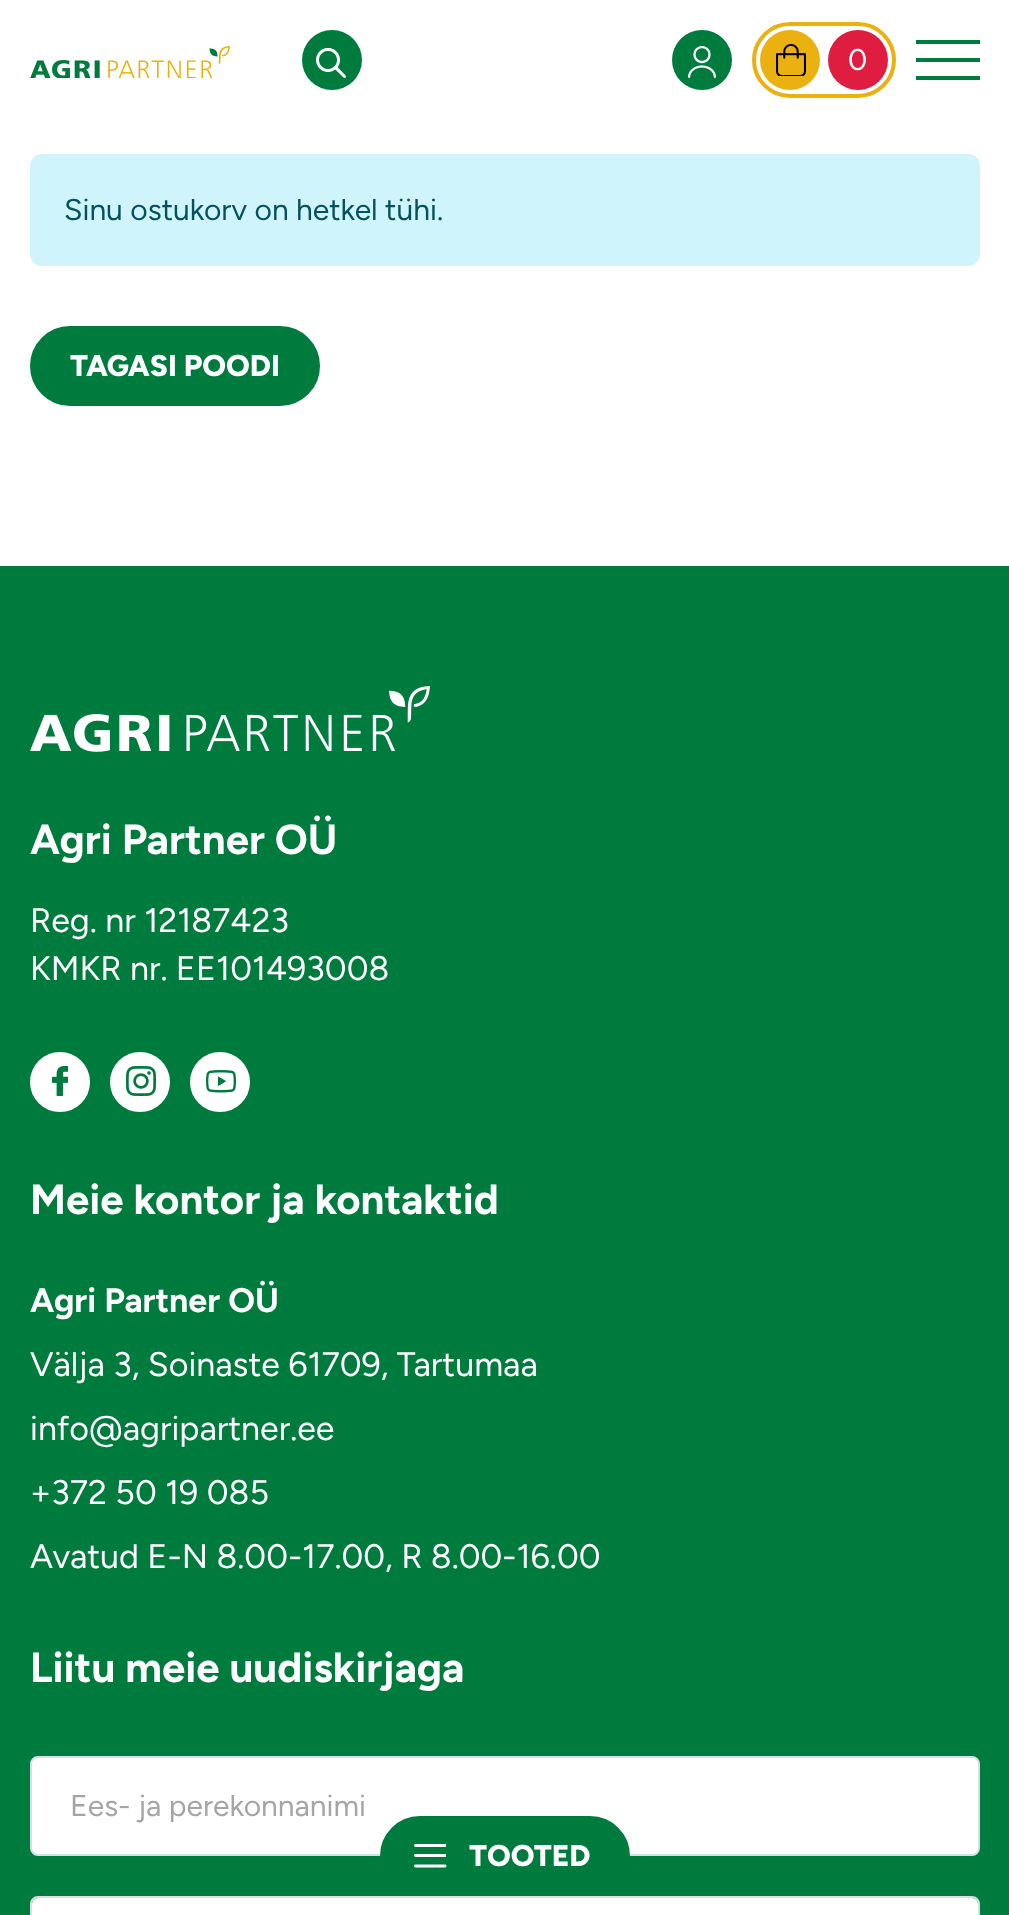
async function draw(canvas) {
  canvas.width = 1009
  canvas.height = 1915
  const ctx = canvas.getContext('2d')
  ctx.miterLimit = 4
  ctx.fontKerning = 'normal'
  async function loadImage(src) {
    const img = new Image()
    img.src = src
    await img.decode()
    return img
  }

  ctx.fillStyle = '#fff'
  ctx.fillRect(0, 0, 1009, 1915)
  ctx.drawImage(await loadImage('image0.png'), 30, 46, 200, 32)
  ctx.fillStyle = '#007b3e'
  ctx.beginPath()
  ctx.arc(332, 60, 30, 0, 2 * Math.PI)
  ctx.fill()
  ctx.drawImage(await loadImage('image1.png'), 316, 48, 30, 30)
  ctx.beginPath()
  ctx.arc(702, 60, 30, 0, 2 * Math.PI)
  ctx.fill()
  ctx.drawImage(await loadImage('image2.png'), 688, 46, 28, 32)
  ctx.beginPath()
  ctx.roundRect(754, 24, 140, 72, 36)
  ctx.strokeStyle = '#ebb110'
  ctx.lineWidth = 4
  ctx.stroke()
  ctx.fillStyle = '#ebb110'
  ctx.beginPath()
  ctx.arc(790, 60, 30, 0, 2 * Math.PI)
  ctx.fill()
  ctx.drawImage(await loadImage('image3.png'), 776, 44, 30, 32)
  ctx.fillStyle = '#df1d40'
  ctx.beginPath()
  ctx.arc(858, 60, 30, 0, 2 * Math.PI)
  ctx.fill()
  ctx.font = '30px Figtree'
  ctx.fillStyle = '#fff'
  ctx.fillText('0', 848, 70)
  ctx.fillStyle = '#007b3e'
  ctx.fillRect(916, 40, 64, 4)
  ctx.fillRect(916, 58, 64, 4)
  ctx.fillRect(916, 76, 64, 4)
  ctx.fillStyle = '#cff4fc'
  ctx.beginPath()
  ctx.roundRect(30, 154, 950, 112, 12)
  ctx.fill()
  ctx.fillStyle = '#055160'
  ctx.fillText('Sinu ostukorv on hetkel tühi.', 64, 220)
  ctx.fillStyle = '#007b3e'
  ctx.beginPath()
  ctx.roundRect(31, 327, 288, 78, 39)
  ctx.fill()
  ctx.strokeStyle = '#007b3e'
  ctx.lineWidth = 2
  ctx.stroke()
  ctx.font = '800 30px Figtree'
  ctx.fillStyle = '#fff'
  ctx.fillText('TAGASI POODI', 70, 376)
  ctx.fillStyle = '#007b3e'
  ctx.fillRect(0, 566, 1009, 1349)
  ctx.drawImage(await loadImage('image4.png'), 30, 686, 400, 66)
  ctx.font = 'bold 42px Figtree'
  ctx.fillStyle = '#fff'
  ctx.fillText('Agri Partner OÜ', 30, 854)
  ctx.font = '34px Figtree'
  ctx.fillText('Reg. nr 12187423', 30, 932)
  ctx.fillText('KMKR nr. EE101493008', 30, 980)
  ctx.beginPath()
  ctx.arc(60, 1082, 29, 0, 2 * Math.PI)
  ctx.fill()
  ctx.strokeStyle = '#fff'
  ctx.stroke()
  ctx.drawImage(await loadImage('image5.png'), 52, 1066, 16, 30)
  ctx.beginPath()
  ctx.arc(140, 1082, 29, 0, 2 * Math.PI)
  ctx.fill()
  ctx.stroke()
  ctx.drawImage(await loadImage('image6.png'), 126, 1066, 30, 30)
  ctx.beginPath()
  ctx.arc(220, 1082, 29, 0, 2 * Math.PI)
  ctx.fill()
  ctx.stroke()
  ctx.drawImage(await loadImage('image7.png'), 206, 1070, 30, 23)
  ctx.font = 'bold 42px Figtree'
  ctx.fillText('Meie kontor ja kontaktid', 30, 1214)
  ctx.font = 'bold 34px Figtree'
  ctx.fillText('Agri Partner OÜ', 30, 1312)
  ctx.font = '34px Figtree'
  ctx.fillText('Välja 3, Soinaste 61709, Tartumaa', 30, 1376)
  ctx.fillText('info@agripartner.ee', 30, 1440)
  ctx.fillText('+372 50 19 085', 30, 1504)
  ctx.fillText('Avatud E-N 8.00-17.00, R 8.00-16.00', 30, 1568)
  ctx.font = 'bold 42px Figtree'
  ctx.fillText('Liitu meie uudiskirjaga', 30, 1682)
  ctx.beginPath()
  ctx.roundRect(31, 1757, 948, 98, 7)
  ctx.fill()
  ctx.strokeStyle = '#d6dfe7'
  ctx.stroke()
  ctx.font = '30px Figtree'
  ctx.fillStyle = '#a5a5a5'
  ctx.fillText('Ees- ja perekonnanimi', 70, 1816)
  ctx.fillStyle = '#fff'
  ctx.beginPath()
  ctx.roundRect(32, 1898, 946, 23, 6)
  ctx.fill()
  ctx.beginPath()
  ctx.roundRect(31, 1897, 948, 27, 7)
  ctx.stroke()
  ctx.fillStyle = '#007b3e'
  ctx.beginPath()
  ctx.roundRect(381, 1817, 248, 78, 39)
  ctx.fill()
  ctx.strokeStyle = '#007b3e'
  ctx.stroke()
  ctx.save()
  ctx.beginPath()
  ctx.rect(414, 1844, 32, 24)
  ctx.clip()
  ctx.beginPath()
  ctx.moveTo(415.5, 1845.5)
  ctx.lineTo(445, 1845.5)
  ctx.moveTo(415.5, 1855.5)
  ctx.lineTo(445, 1855.5)
  ctx.strokeStyle = '#fff'
  ctx.lineWidth = 2.9
  ctx.lineCap = 'round'
  ctx.stroke()
  ctx.restore()
  ctx.beginPath()
  ctx.moveTo(415.5, 1866)
  ctx.lineTo(445, 1866)
  ctx.strokeStyle = '#fff'
  ctx.lineWidth = 2.9
  ctx.lineCap = 'round'
  ctx.stroke()
  ctx.font = '800 30px Figtree'
  ctx.fillStyle = '#fff'
  ctx.fillText('TOOTED', 469, 1866)
}

draw(document.querySelector('canvas'))
